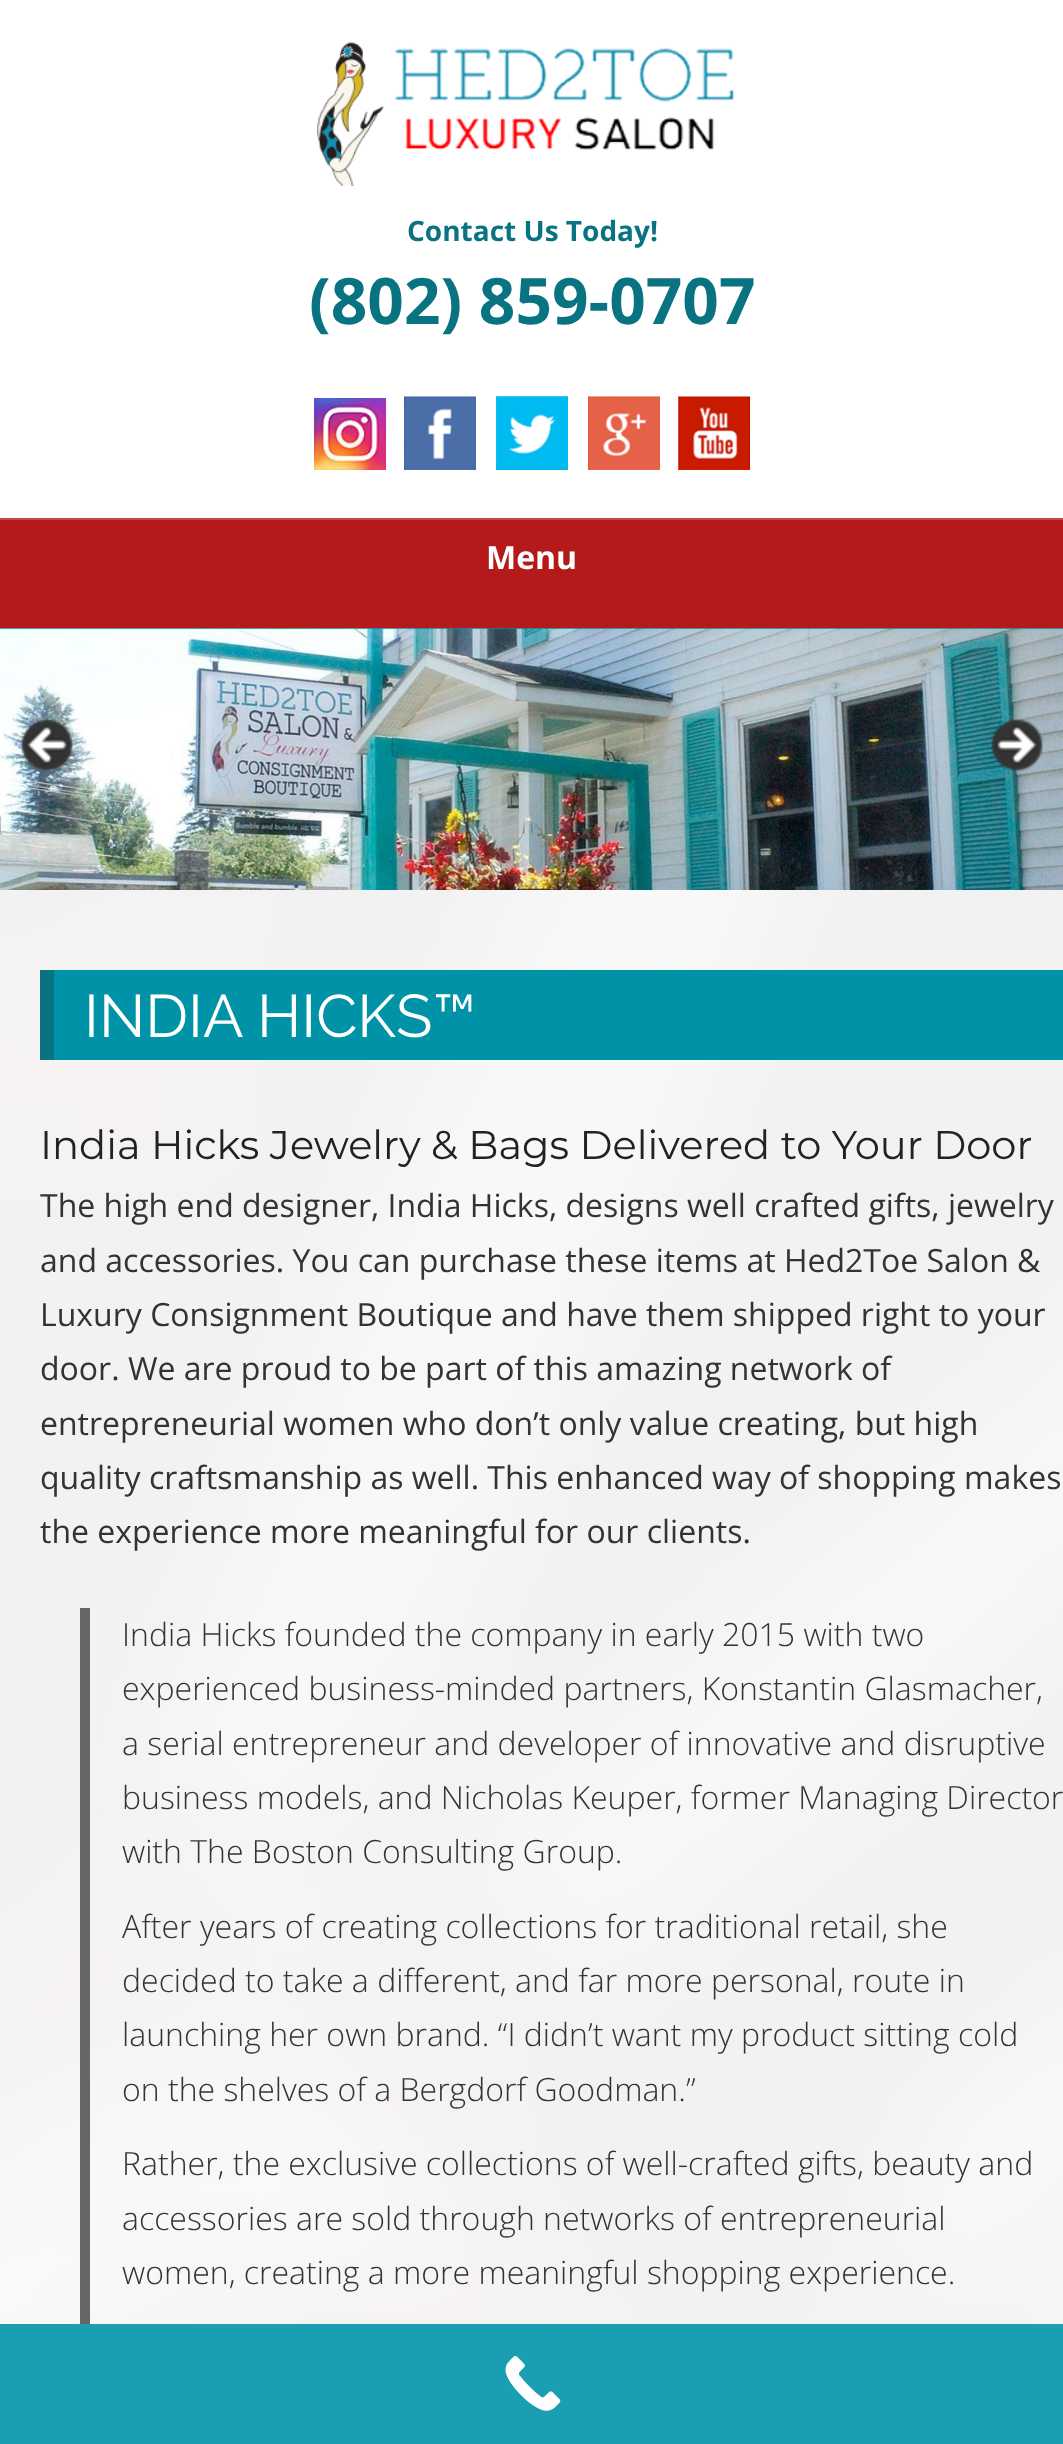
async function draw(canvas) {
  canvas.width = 1063
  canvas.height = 2444
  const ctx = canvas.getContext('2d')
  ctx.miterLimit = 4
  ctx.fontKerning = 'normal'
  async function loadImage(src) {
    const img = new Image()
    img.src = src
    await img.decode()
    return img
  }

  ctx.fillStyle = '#fff'
  ctx.fillRect(0, 0, 1063, 2444)
  ctx.drawImage(await loadImage('image0.png'), 0, 628, 1063, 1696)
  ctx.drawImage(await loadImage('image1.png'), 317, 42, 418, 144)
  ctx.font = 'bold 28px Open Sans'
  ctx.fillStyle = '#097382'
  ctx.fillText('Contact Us Today!', 407, 241)
  ctx.font = 'bold 64px Open Sans'
  ctx.fillText('(802) 859-0707', 309, 324)
  ctx.drawImage(await loadImage('image2.png'), 314, 398, 72, 72)
  ctx.drawImage(await loadImage('image3.png'), 404, 396, 72, 74)
  ctx.drawImage(await loadImage('image4.png'), 496, 396, 72, 74)
  ctx.drawImage(await loadImage('image5.png'), 588, 396, 72, 74)
  ctx.drawImage(await loadImage('image6.png'), 678, 396, 72, 74)
  ctx.fillStyle = '#0000000d'
  ctx.filter = 'blur(2px)'
  ctx.beginPath()
  ctx.rect(0, 520, 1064, 110)
  ctx.fill()
  ctx.filter = 'none'
  ctx.fillStyle = '#b41a1a'
  ctx.fillRect(0, 520, 1063, 108)
  ctx.fillStyle = '#c34848'
  ctx.fillRect(0, 518, 1063, 2)
  ctx.font = 'bold 32px Open Sans'
  ctx.fillStyle = '#fff'
  ctx.fillText('Menu', 486, 569)
  ctx.drawImage(await loadImage('image7.png'), 0, 628, 1063, 262)
  ctx.drawImage(await loadImage('image8.png'), 21, 719, 52, 52)
  ctx.drawImage(await loadImage('image9.png'), 991, 719, 52, 52)
  ctx.fillStyle = '#fffffff2'
  ctx.fillRect(0, 890, 1063, 1434)
  ctx.fillStyle = '#0092a7'
  ctx.fillRect(54, 970, 1009, 90)
  ctx.fillStyle = '#097382'
  ctx.fillRect(40, 970, 14, 90)
  ctx.font = '60px Raleway'
  ctx.fillStyle = '#fff'
  ctx.fillText('INDIA HICKS™', 84, 1037)
  ctx.font = '40px Montserrat'
  ctx.fillStyle = '#222'
  ctx.fillText('India Hicks Jewelry & Bags Delivered to Your Door', 40, 1159)
  ctx.font = '32px Open Sans'
  ctx.fillStyle = '#333'
  ctx.fillText('The high end designer, India Hicks, designs well crafted gifts, jewelry', 40, 1217)
  ctx.fillText('and accessories. You can purchase these items at Hed2Toe Salon &', 40, 1272)
  ctx.fillText('Luxury Consignment Boutique and have them shipped right to your', 40, 1326)
  ctx.fillText('door. We are proud to be part of this amazing network of', 40, 1380)
  ctx.fillText('entrepreneurial women who don’t only value creating, but high', 40, 1435)
  ctx.fillText('quality craftsmanship as well. This enhanced way of shopping makes', 40, 1489)
  ctx.fillText('the experience more meaningful for our clients.', 40, 1543)
  ctx.fillStyle = '#666'
  ctx.fillRect(80, 1608, 10, 716)
  ctx.font = '300 32px Open Sans'
  ctx.fillStyle = '#333'
  ctx.fillText('India Hicks founded the company in early 2015 with two', 122, 1646)
  ctx.fillText('experienced business-minded partners, Konstantin Glasmacher,', 122, 1700)
  ctx.fillText('a serial entrepreneur and developer of innovative and disruptive', 122, 1755)
  ctx.fillText('business models, and Nicholas Keuper, former Managing Director', 122, 1809)
  ctx.fillText('with The Boston Consulting Group.', 122, 1863)
  ctx.fillText('After years of creating collections for traditional retail, she', 122, 1938)
  ctx.fillText('decided to take a different, and far more personal, route in', 122, 1992)
  ctx.fillText('launching her own brand. “I didn’t want my product sitting cold', 122, 2046)
  ctx.fillText('on the shelves of a Bergdorf Goodman.”', 122, 2101)
  ctx.fillText('Rather, the exclusive collections of well-crafted gifts, beauty and', 122, 2175)
  ctx.fillText('accessories are sold through networks of entrepreneurial', 122, 2230)
  ctx.fillText('women, creating a more meaningful shopping experience.', 122, 2284)
  ctx.fillStyle = '#1a9eb2'
  ctx.fillRect(0, 2324, 1063, 120)
  ctx.drawImage(await loadImage('image10.png'), 505, 2356, 56, 55)
}

draw(document.querySelector('canvas'))
